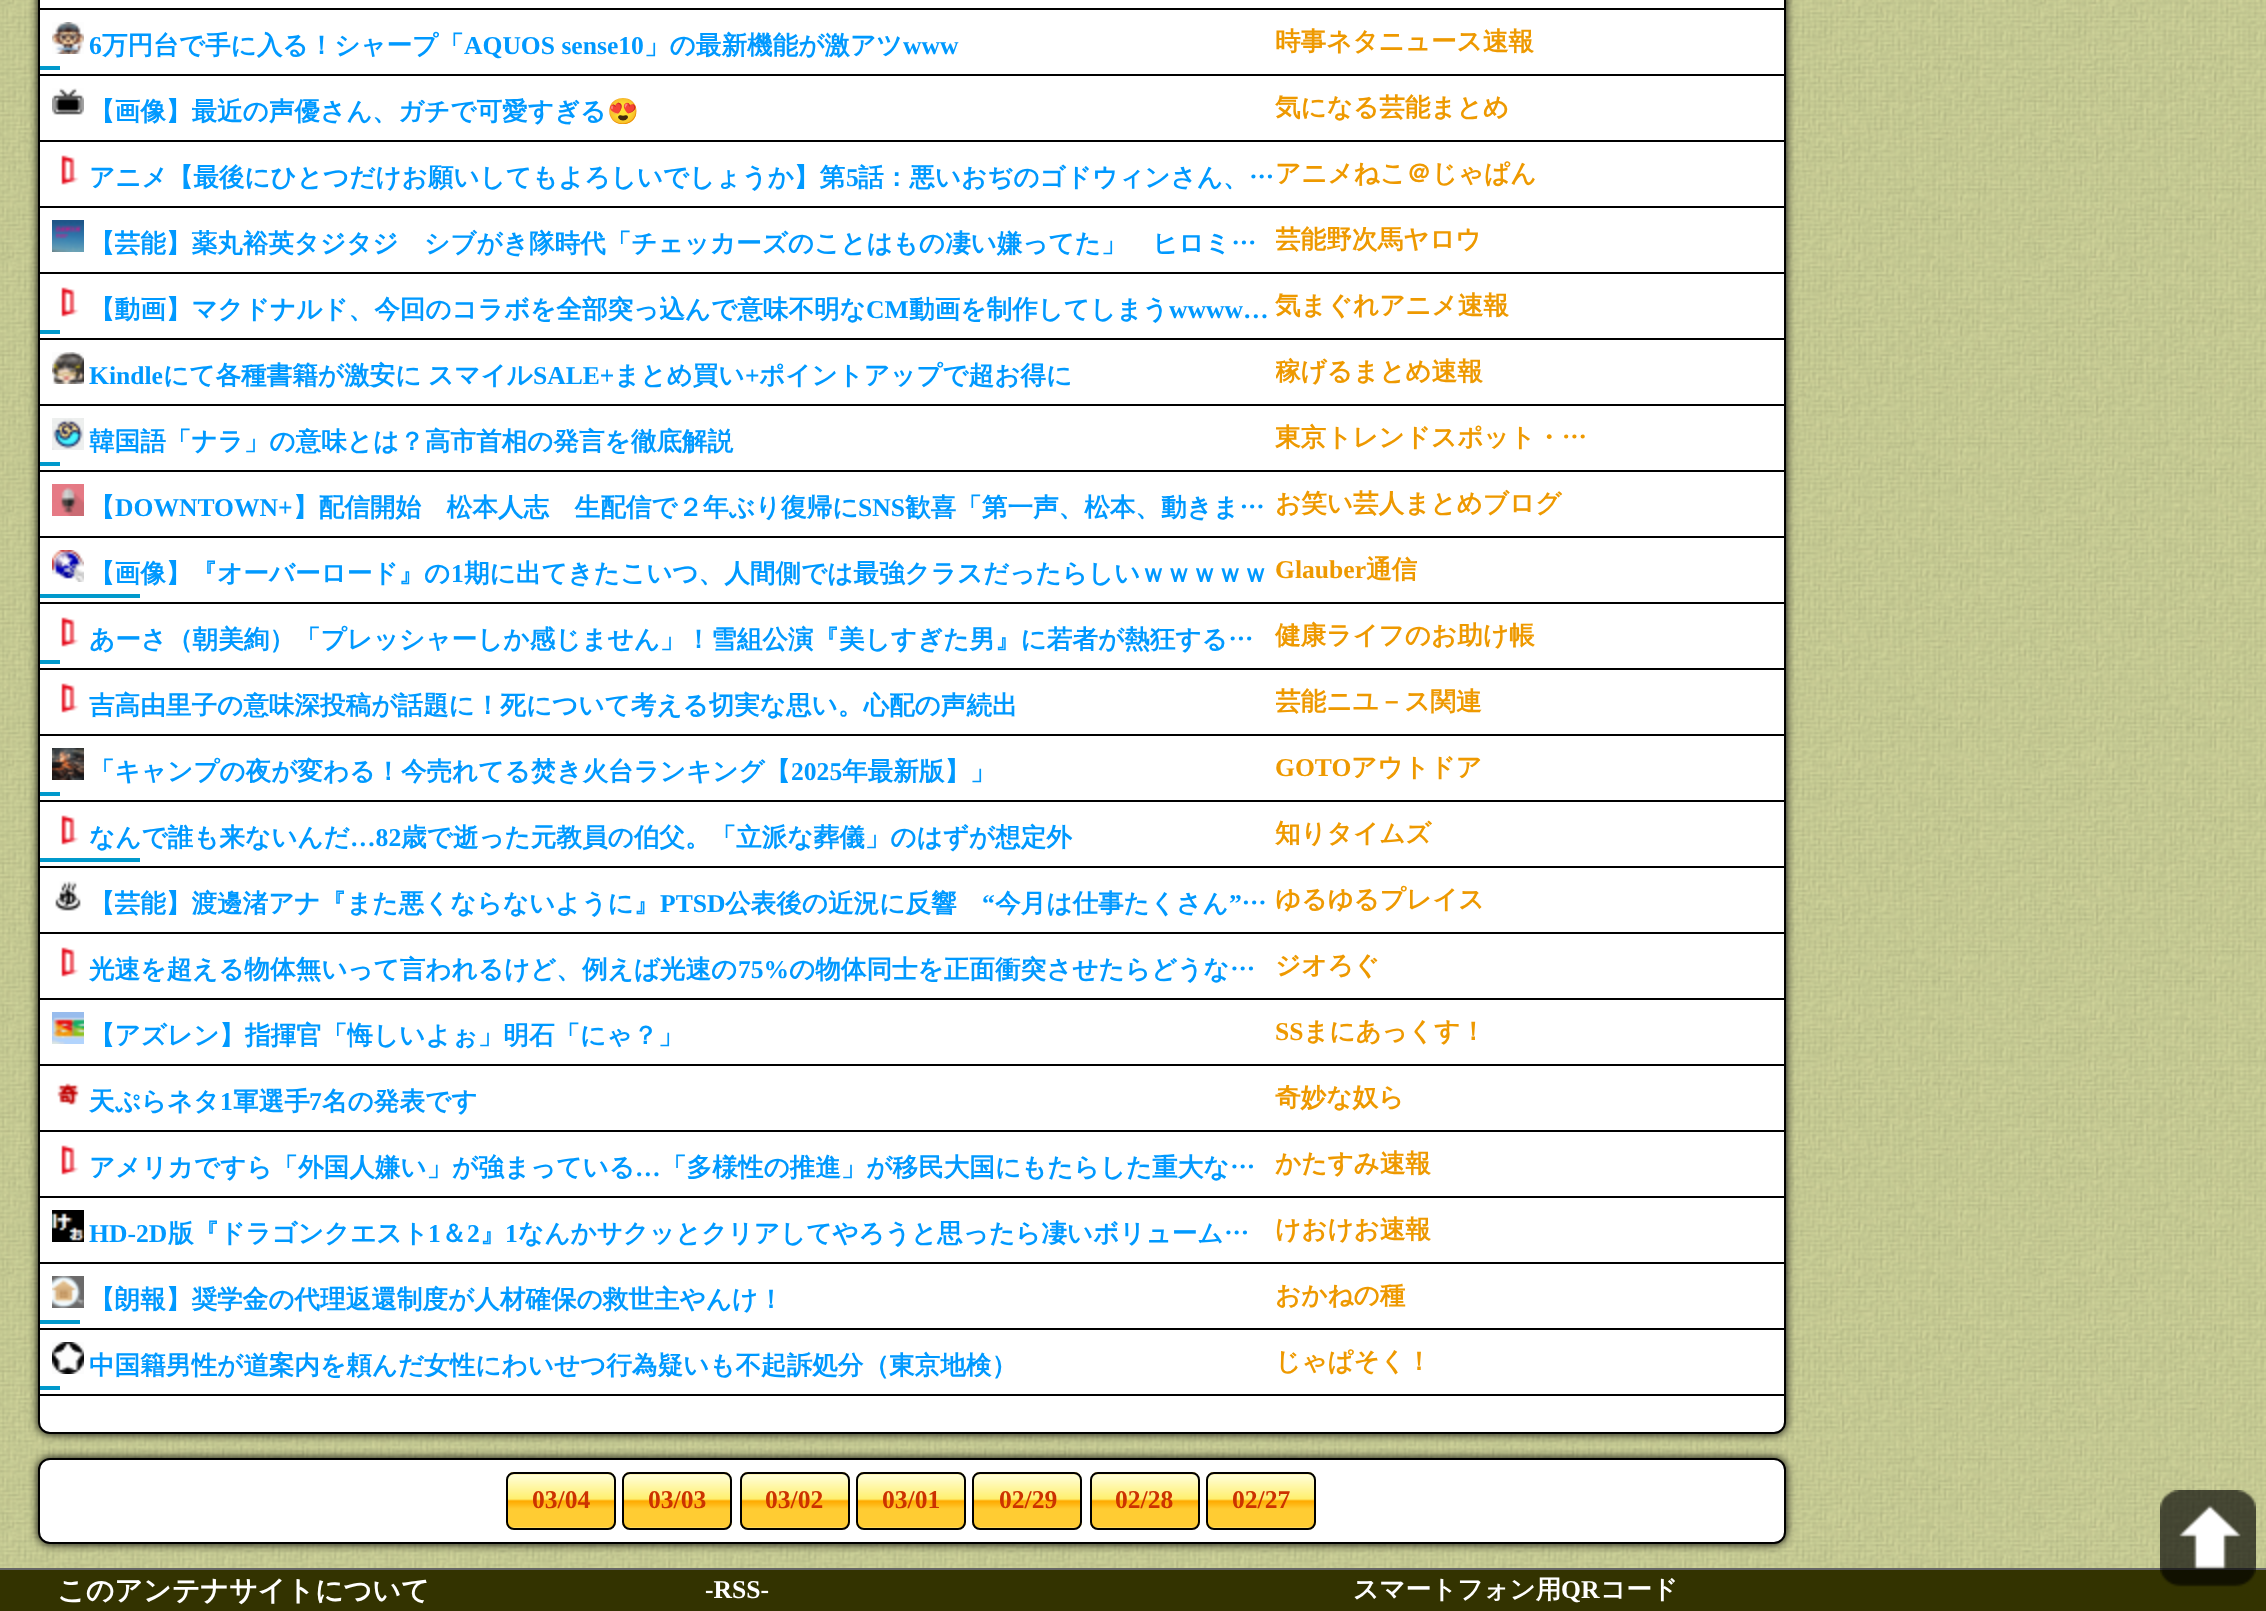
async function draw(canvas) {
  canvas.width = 2266
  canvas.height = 1611
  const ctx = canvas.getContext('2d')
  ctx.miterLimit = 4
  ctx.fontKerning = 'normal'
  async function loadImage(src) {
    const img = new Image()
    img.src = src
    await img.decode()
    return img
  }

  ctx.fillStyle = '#fff'
  ctx.fillRect(0, 0, 2266, 1611)
  ctx.drawImage(await loadImage('image0.png'), 0, 0, 2266, 1568)
  ctx.fillStyle = '#000'
  ctx.filter = 'blur(5px)'
  ctx.beginPath()
  ctx.roundRect(38, -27, 1748, 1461, 12)
  ctx.fill()
  ctx.filter = 'none'
  ctx.fillStyle = '#fff'
  ctx.beginPath()
  ctx.moveTo(39, -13)
  ctx.lineTo(1785, -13)
  ctx.lineTo(1785, 1422)
  ctx.bezierCurveTo(1785, 1428, 1780, 1433, 1774, 1433)
  ctx.lineTo(50, 1433)
  ctx.bezierCurveTo(44, 1433, 39, 1428, 39, 1422)
  ctx.closePath()
  ctx.fill()
  ctx.strokeStyle = '#000'
  ctx.lineWidth = 2
  ctx.stroke()
  ctx.fillStyle = '#000'
  ctx.fillRect(40, 8, 1744, 2)
  ctx.fillRect(40, 74, 1744, 2)
  ctx.drawImage(await loadImage('image1.png'), 52, 22, 32, 32)
  ctx.font = 'bold 25.6px Liberation Serif'
  ctx.fillStyle = '#09f'
  ctx.fillText('6', 89, 54)
  ctx.font = 'bold 25.6px WenQuanYi Zen Hei'
  ctx.fillText('万円台で手に入る！シャープ「', 102, 54)
  ctx.font = 'bold 25.6px Liberation Serif'
  ctx.fillText('AQUOS sense10', 464, 54)
  ctx.font = 'bold 25.6px WenQuanYi Zen Hei'
  ctx.fillText('」の最新機能が激アツ', 644, 54)
  ctx.font = 'bold 25.6px Liberation Serif'
  ctx.fillText('www', 903, 54)
  ctx.font = 'bold 25.6px WenQuanYi Zen Hei'
  ctx.fillStyle = '#e90'
  ctx.fillText('時事ネタニュース速報', 1275, 50)
  ctx.fillStyle = '#09c'
  ctx.fillRect(40, 66, 20, 4)
  ctx.fillStyle = '#000'
  ctx.fillRect(40, 140, 1744, 2)
  ctx.drawImage(await loadImage('image2.png'), 52, 88, 32, 27)
  ctx.fillStyle = '#09f'
  ctx.fillText('【画像】最近の声優さん、ガチで可愛すぎる', 89, 120)
  ctx.font = 'bold 25.6px Noto Color Emoji'
  ctx.fillText('😍', 607, 120)
  ctx.font = 'bold 25.6px WenQuanYi Zen Hei'
  ctx.fillStyle = '#e90'
  ctx.fillText('気になる芸能まとめ', 1275, 116)
  ctx.fillStyle = '#000'
  ctx.fillRect(40, 206, 1744, 2)
  ctx.drawImage(await loadImage('image3.png'), 61, 155, 18, 30)
  ctx.fillStyle = '#09f'
  ctx.fillText('アニメ【最後にひとつだけお願いしてもよろしいでしょうか】第', 89, 186)
  ctx.font = 'bold 25.6px Liberation Serif'
  ctx.fillText('5', 846, 186)
  ctx.font = 'bold 25.6px WenQuanYi Zen Hei'
  ctx.fillText('話：悪いおぢのゴドウィンさん、…', 858, 186)
  ctx.fillStyle = '#e90'
  ctx.fillText('アニメねこ＠じゃぱん', 1275, 182)
  ctx.fillStyle = '#000'
  ctx.fillRect(40, 272, 1744, 2)
  ctx.drawImage(await loadImage('image4.png'), 52, 220, 32, 32)
  ctx.fillStyle = '#09f'
  ctx.fillText('【芸能】薬丸裕英タジタジ　シブがき隊時代「チェッカーズのことはもの凄い嫌ってた」　ヒロミ…', 89, 252)
  ctx.save()
  ctx.beginPath()
  ctx.rect(1276, 208, 328, 56)
  ctx.clip()
  ctx.fillStyle = '#e90'
  ctx.fillText('芸能野次馬ヤロウ', 1275, 248)
  ctx.restore()
  ctx.fillStyle = '#000'
  ctx.fillRect(40, 338, 1744, 2)
  ctx.drawImage(await loadImage('image3.png'), 61, 287, 18, 30)
  ctx.fillStyle = '#09f'
  ctx.fillText('【動画】マクドナルド、今回のコラボを全部突っ込んで意味不明な', 89, 318)
  ctx.font = 'bold 25.6px Liberation Serif'
  ctx.fillText('CM', 866, 318)
  ctx.font = 'bold 25.6px WenQuanYi Zen Hei'
  ctx.fillText('動画を制作してしまう', 909, 318)
  ctx.font = 'bold 25.6px Liberation Serif'
  ctx.fillText('wwww…', 1169, 318)
  ctx.font = 'bold 25.6px WenQuanYi Zen Hei'
  ctx.fillStyle = '#e90'
  ctx.fillText('気まぐれアニメ速報', 1275, 314)
  ctx.fillStyle = '#09c'
  ctx.fillRect(40, 330, 20, 4)
  ctx.fillStyle = '#000'
  ctx.fillRect(40, 404, 1744, 2)
  ctx.drawImage(await loadImage('image5.png'), 52, 352, 32, 32)
  ctx.font = 'bold 25.6px Liberation Serif'
  ctx.fillStyle = '#09f'
  ctx.fillText('Kindle', 89, 384)
  ctx.wordSpacing = '-1px'
  ctx.font = 'bold 25.6px WenQuanYi Zen Hei'
  ctx.fillText('にて各種書籍が激安に スマイル', 163, 384)
  ctx.wordSpacing = '0px'
  ctx.font = 'bold 25.6px Liberation Serif'
  ctx.fillText('SALE+', 533, 384)
  ctx.font = 'bold 25.6px WenQuanYi Zen Hei'
  ctx.fillText('まとめ買い', 614, 384)
  ctx.font = 'bold 25.6px Liberation Serif'
  ctx.fillText('+', 745, 384)
  ctx.font = 'bold 25.6px WenQuanYi Zen Hei'
  ctx.fillText('ポイントアップで超お得に', 759, 384)
  ctx.save()
  ctx.beginPath()
  ctx.rect(1276, 340, 328, 56)
  ctx.clip()
  ctx.fillStyle = '#e90'
  ctx.fillText('稼げるまとめ速報', 1275, 380)
  ctx.restore()
  ctx.fillStyle = '#000'
  ctx.fillRect(40, 470, 1744, 2)
  ctx.drawImage(await loadImage('image6.png'), 52, 418, 32, 32)
  ctx.fillStyle = '#09f'
  ctx.fillText('韓国語「ナラ」の意味とは？高市首相の発言を徹底解説', 89, 450)
  ctx.fillStyle = '#e90'
  ctx.fillText('東京トレンドスポット・…', 1275, 446)
  ctx.fillStyle = '#09c'
  ctx.fillRect(40, 462, 20, 4)
  ctx.fillStyle = '#000'
  ctx.fillRect(40, 536, 1744, 2)
  ctx.drawImage(await loadImage('image7.png'), 52, 484, 32, 32)
  ctx.fillStyle = '#09f'
  ctx.fillText('【', 89, 516)
  ctx.font = 'bold 25.6px Liberation Serif'
  ctx.fillText('DOWNTOWN+', 115, 516)
  ctx.font = 'bold 25.6px WenQuanYi Zen Hei'
  ctx.fillText('】配信開始　松本人志　生配信で２年ぶり復帰に', 293, 516)
  ctx.font = 'bold 25.6px Liberation Serif'
  ctx.fillText('SNS', 858, 516)
  ctx.font = 'bold 25.6px WenQuanYi Zen Hei'
  ctx.fillText('歓喜「第一声、松本、動きま…', 905, 516)
  ctx.fillStyle = '#e90'
  ctx.fillText('お笑い芸人まとめブログ', 1275, 512)
  ctx.fillStyle = '#000'
  ctx.fillRect(40, 602, 1744, 2)
  ctx.drawImage(await loadImage('image8.png'), 52, 550, 32, 32)
  ctx.fillStyle = '#09f'
  ctx.fillText('【画像】『オーバーロード』の', 89, 582)
  ctx.font = 'bold 25.6px Liberation Serif'
  ctx.fillText('1', 451, 582)
  ctx.font = 'bold 25.6px WenQuanYi Zen Hei'
  ctx.fillText('期に出てきたこいつ、人間側では最強クラスだったらしいｗｗｗｗｗ', 464, 582)
  ctx.font = 'bold 25.6px Liberation Serif'
  ctx.fillStyle = '#e90'
  ctx.fillText('Glauber', 1275, 578)
  ctx.font = 'bold 25.6px WenQuanYi Zen Hei'
  ctx.fillText('通信', 1366, 578)
  ctx.fillStyle = '#09c'
  ctx.fillRect(40, 594, 100, 4)
  ctx.fillStyle = '#000'
  ctx.fillRect(40, 668, 1744, 2)
  ctx.drawImage(await loadImage('image3.png'), 61, 617, 18, 30)
  ctx.fillStyle = '#09f'
  ctx.fillText('あーさ（朝美絢）「プレッシャーしか感じません」！雪組公演『美しすぎた男』に若者が熱狂する…', 89, 648)
  ctx.fillStyle = '#e90'
  ctx.fillText('健康ライフのお助け帳', 1275, 644)
  ctx.fillStyle = '#09c'
  ctx.fillRect(40, 660, 20, 4)
  ctx.fillStyle = '#000'
  ctx.fillRect(40, 734, 1744, 2)
  ctx.drawImage(await loadImage('image3.png'), 61, 683, 18, 30)
  ctx.fillStyle = '#09f'
  ctx.fillText('吉高由里子の意味深投稿が話題に！死について考える切実な思い。心配の声続出', 89, 714)
  ctx.save()
  ctx.beginPath()
  ctx.rect(1276, 670, 328, 56)
  ctx.clip()
  ctx.fillStyle = '#e90'
  ctx.fillText('芸能ニユ－ス関連', 1275, 710)
  ctx.restore()
  ctx.fillStyle = '#000'
  ctx.fillRect(40, 800, 1744, 2)
  ctx.drawImage(await loadImage('image9.png'), 52, 748, 32, 32)
  ctx.fillStyle = '#09f'
  ctx.fillText('「キャンプの夜が変わる！今売れてる焚き火台ランキング【', 89, 780)
  ctx.font = 'bold 25.6px Liberation Serif'
  ctx.fillText('2025', 791, 780)
  ctx.font = 'bold 25.6px WenQuanYi Zen Hei'
  ctx.fillText('年最新版】」', 842, 780)
  ctx.font = 'bold 25.6px Liberation Serif'
  ctx.fillStyle = '#e90'
  ctx.fillText('GOTO', 1275, 776)
  ctx.font = 'bold 25.6px WenQuanYi Zen Hei'
  ctx.fillText('アウトドア', 1351, 776)
  ctx.fillStyle = '#09c'
  ctx.fillRect(40, 792, 20, 4)
  ctx.fillStyle = '#000'
  ctx.fillRect(40, 866, 1744, 2)
  ctx.drawImage(await loadImage('image3.png'), 61, 815, 18, 30)
  ctx.fillStyle = '#09f'
  ctx.fillText('なんで誰も来ないんだ', 89, 846)
  ctx.font = 'bold 25.6px Liberation Serif'
  ctx.fillText('…82', 350, 846)
  ctx.font = 'bold 25.6px WenQuanYi Zen Hei'
  ctx.fillText('歳で逝った元教員の伯父。「立派な葬儀」のはずが想定外', 401, 846)
  ctx.fillStyle = '#e90'
  ctx.fillText('知りタイムズ', 1275, 842)
  ctx.fillStyle = '#09c'
  ctx.fillRect(40, 858, 100, 4)
  ctx.fillStyle = '#000'
  ctx.fillRect(40, 932, 1744, 2)
  ctx.drawImage(await loadImage('image10.png'), 55, 881, 26, 30)
  ctx.fillStyle = '#09f'
  ctx.fillText('【芸能】渡邊渚アナ『また悪くならないように』', 89, 912)
  ctx.font = 'bold 25.6px Liberation Serif'
  ctx.fillText('PTSD', 660, 912)
  ctx.font = 'bold 25.6px WenQuanYi Zen Hei'
  ctx.fillText('公表後の近況に反響', 725, 912)
  ctx.font = 'bold 25.6px Liberation Serif'
  ctx.fillText('“', 982, 912)
  ctx.font = 'bold 25.6px WenQuanYi Zen Hei'
  ctx.fillText('今月は仕事たくさん', 995, 912)
  ctx.font = 'bold 25.6px Liberation Serif'
  ctx.fillText('”', 1229, 912)
  ctx.font = 'bold 25.6px WenQuanYi Zen Hei'
  ctx.fillText('…', 1241, 912)
  ctx.fillStyle = '#e90'
  ctx.fillText('ゆるゆるプレイス', 1275, 908)
  ctx.fillStyle = '#000'
  ctx.fillRect(40, 998, 1744, 2)
  ctx.drawImage(await loadImage('image3.png'), 61, 947, 18, 30)
  ctx.fillStyle = '#09f'
  ctx.fillText('光速を超える物体無いって言われるけど、例えば光速の', 89, 978)
  ctx.font = 'bold 25.6px Liberation Serif'
  ctx.fillText('75%', 738, 978)
  ctx.font = 'bold 25.6px WenQuanYi Zen Hei'
  ctx.fillText('の物体同士を正面衝突させたらどうな…', 789, 978)
  ctx.fillStyle = '#e90'
  ctx.fillText('ジオろぐ', 1275, 974)
  ctx.fillStyle = '#000'
  ctx.fillRect(40, 1064, 1744, 2)
  ctx.drawImage(await loadImage('image11.png'), 52, 1012, 32, 32)
  ctx.fillStyle = '#09f'
  ctx.fillText('【アズレン】指揮官「悔しいよぉ」明石「にゃ？」', 89, 1044)
  ctx.font = 'bold 25.6px Liberation Serif'
  ctx.fillStyle = '#e90'
  ctx.fillText('SS', 1275, 1040)
  ctx.font = 'bold 25.6px WenQuanYi Zen Hei'
  ctx.fillText('まにあっくす！', 1303, 1040)
  ctx.fillStyle = '#000'
  ctx.fillRect(40, 1130, 1744, 2)
  ctx.drawImage(await loadImage('image12.png'), 57, 1083, 22, 22)
  ctx.fillStyle = '#09f'
  ctx.fillText('天ぷらネタ', 89, 1110)
  ctx.font = 'bold 25.6px Liberation Serif'
  ctx.fillText('1', 220, 1110)
  ctx.font = 'bold 25.6px WenQuanYi Zen Hei'
  ctx.fillText('軍選手', 233, 1110)
  ctx.font = 'bold 25.6px Liberation Serif'
  ctx.fillText('7', 309, 1110)
  ctx.font = 'bold 25.6px WenQuanYi Zen Hei'
  ctx.fillText('名の発表です', 322, 1110)
  ctx.fillStyle = '#e90'
  ctx.fillText('奇妙な奴ら', 1275, 1106)
  ctx.fillStyle = '#000'
  ctx.fillRect(40, 1196, 1744, 2)
  ctx.drawImage(await loadImage('image3.png'), 61, 1145, 18, 30)
  ctx.fillStyle = '#09f'
  ctx.fillText('アメリカですら「外国人嫌い」が強まっている', 89, 1176)
  ctx.font = 'bold 25.6px Liberation Serif'
  ctx.fillText('…', 635, 1176)
  ctx.font = 'bold 25.6px WenQuanYi Zen Hei'
  ctx.fillText('「多様性の推進」が移民大国にもたらした重大な…', 661, 1176)
  ctx.fillStyle = '#e90'
  ctx.fillText('かたすみ速報', 1275, 1172)
  ctx.fillStyle = '#000'
  ctx.fillRect(40, 1262, 1744, 2)
  ctx.drawImage(await loadImage('image13.png'), 52, 1210, 32, 32)
  ctx.font = 'bold 25.6px Liberation Serif'
  ctx.fillStyle = '#09f'
  ctx.fillText('HD-2D', 89, 1242)
  ctx.font = 'bold 25.6px WenQuanYi Zen Hei'
  ctx.fillText('版『ドラゴンクエスト', 168, 1242)
  ctx.font = 'bold 25.6px Liberation Serif'
  ctx.fillText('1', 428, 1242)
  ctx.font = 'bold 25.6px WenQuanYi Zen Hei'
  ctx.fillText('＆', 441, 1242)
  ctx.font = 'bold 25.6px Liberation Serif'
  ctx.fillText('2', 467, 1242)
  ctx.font = 'bold 25.6px WenQuanYi Zen Hei'
  ctx.fillText('』', 480, 1242)
  ctx.font = 'bold 25.6px Liberation Serif'
  ctx.fillText('1', 505, 1242)
  ctx.font = 'bold 25.6px WenQuanYi Zen Hei'
  ctx.fillText('なんかサクッとクリアしてやろうと思ったら凄いボリューム…', 518, 1242)
  ctx.fillStyle = '#e90'
  ctx.fillText('けおけお速報', 1275, 1238)
  ctx.fillStyle = '#000'
  ctx.fillRect(40, 1328, 1744, 2)
  ctx.drawImage(await loadImage('image14.png'), 52, 1276, 32, 32)
  ctx.fillStyle = '#09f'
  ctx.fillText('【朗報】奨学金の代理返還制度が人材確保の救世主やんけ！', 89, 1308)
  ctx.fillStyle = '#e90'
  ctx.fillText('おかねの種', 1275, 1304)
  ctx.fillStyle = '#09c'
  ctx.fillRect(40, 1320, 40, 4)
  ctx.fillStyle = '#000'
  ctx.fillRect(40, 1394, 1744, 2)
  ctx.drawImage(await loadImage('image15.png'), 52, 1342, 32, 32)
  ctx.fillStyle = '#09f'
  ctx.fillText('中国籍男性が道案内を頼んだ女性にわいせつ行為疑いも不起訴処分（東京地検）', 89, 1374)
  ctx.fillStyle = '#e90'
  ctx.fillText('じゃぱそく！', 1275, 1370)
  ctx.fillStyle = '#09c'
  ctx.fillRect(40, 1386, 20, 4)
  ctx.fillStyle = '#000'
  ctx.filter = 'blur(5px)'
  ctx.beginPath()
  ctx.roundRect(38, 1458, 1748, 86, 12)
  ctx.fill()
  ctx.filter = 'none'
  ctx.fillStyle = '#fff'
  ctx.beginPath()
  ctx.roundRect(39, 1459, 1746, 84, 11)
  ctx.fill()
  ctx.stroke()
  ctx.drawImage(await loadImage('image16.png'), 506, 1472, 110, 58)
  ctx.beginPath()
  ctx.roundRect(507, 1473, 108, 56, 7)
  ctx.stroke()
  ctx.font = 'bold 25.6px Liberation Serif'
  ctx.fillStyle = '#c30'
  ctx.fillText('03/04', 532, 1508)
  ctx.drawImage(await loadImage('image17.png'), 622, 1472, 110, 58)
  ctx.beginPath()
  ctx.roundRect(623, 1473, 108, 56, 7)
  ctx.stroke()
  ctx.fillText('03/03', 648, 1508)
  ctx.drawImage(await loadImage('image17.png'), 740, 1472, 110, 58)
  ctx.beginPath()
  ctx.roundRect(741, 1473, 108, 56, 7)
  ctx.stroke()
  ctx.fillText('03/02', 765, 1508)
  ctx.drawImage(await loadImage('image17.png'), 856, 1472, 110, 58)
  ctx.beginPath()
  ctx.roundRect(857, 1473, 108, 56, 7)
  ctx.stroke()
  ctx.fillText('03/01', 882, 1508)
  ctx.drawImage(await loadImage('image17.png'), 972, 1472, 110, 58)
  ctx.beginPath()
  ctx.roundRect(973, 1473, 108, 56, 7)
  ctx.stroke()
  ctx.fillText('02/29', 999, 1508)
  ctx.drawImage(await loadImage('image17.png'), 1090, 1472, 110, 58)
  ctx.beginPath()
  ctx.roundRect(1091, 1473, 108, 56, 7)
  ctx.stroke()
  ctx.fillText('02/28', 1115, 1508)
  ctx.drawImage(await loadImage('image17.png'), 1206, 1472, 110, 58)
  ctx.beginPath()
  ctx.roundRect(1207, 1473, 108, 56, 7)
  ctx.stroke()
  ctx.fillText('02/27', 1232, 1508)
  ctx.fillStyle = '#330'
  ctx.fillRect(0, 1570, 2266, 41)
  ctx.fillStyle = '#666'
  ctx.fillRect(0, 1568, 2266, 2)
  ctx.drawImage(await loadImage('image18.png'), 2160, 1490, 96, 97)
  ctx.font = 'bold 28px WenQuanYi Zen Hei'
  ctx.fillStyle = '#fff'
  ctx.fillText('このアンテナサイトについて', 57, 1600)
  ctx.font = 'bold 25.6px Liberation Serif'
  ctx.fillText('-RSS-', 705, 1598)
  ctx.font = 'bold 25.6px WenQuanYi Zen Hei'
  ctx.fillText('スマートフォン用', 1353, 1598)
  ctx.font = 'bold 25.6px Liberation Serif'
  ctx.fillText('QR', 1561, 1598)
  ctx.font = 'bold 25.6px WenQuanYi Zen Hei'
  ctx.fillText('コード', 1600, 1598)
}

draw(document.querySelector('canvas'))
